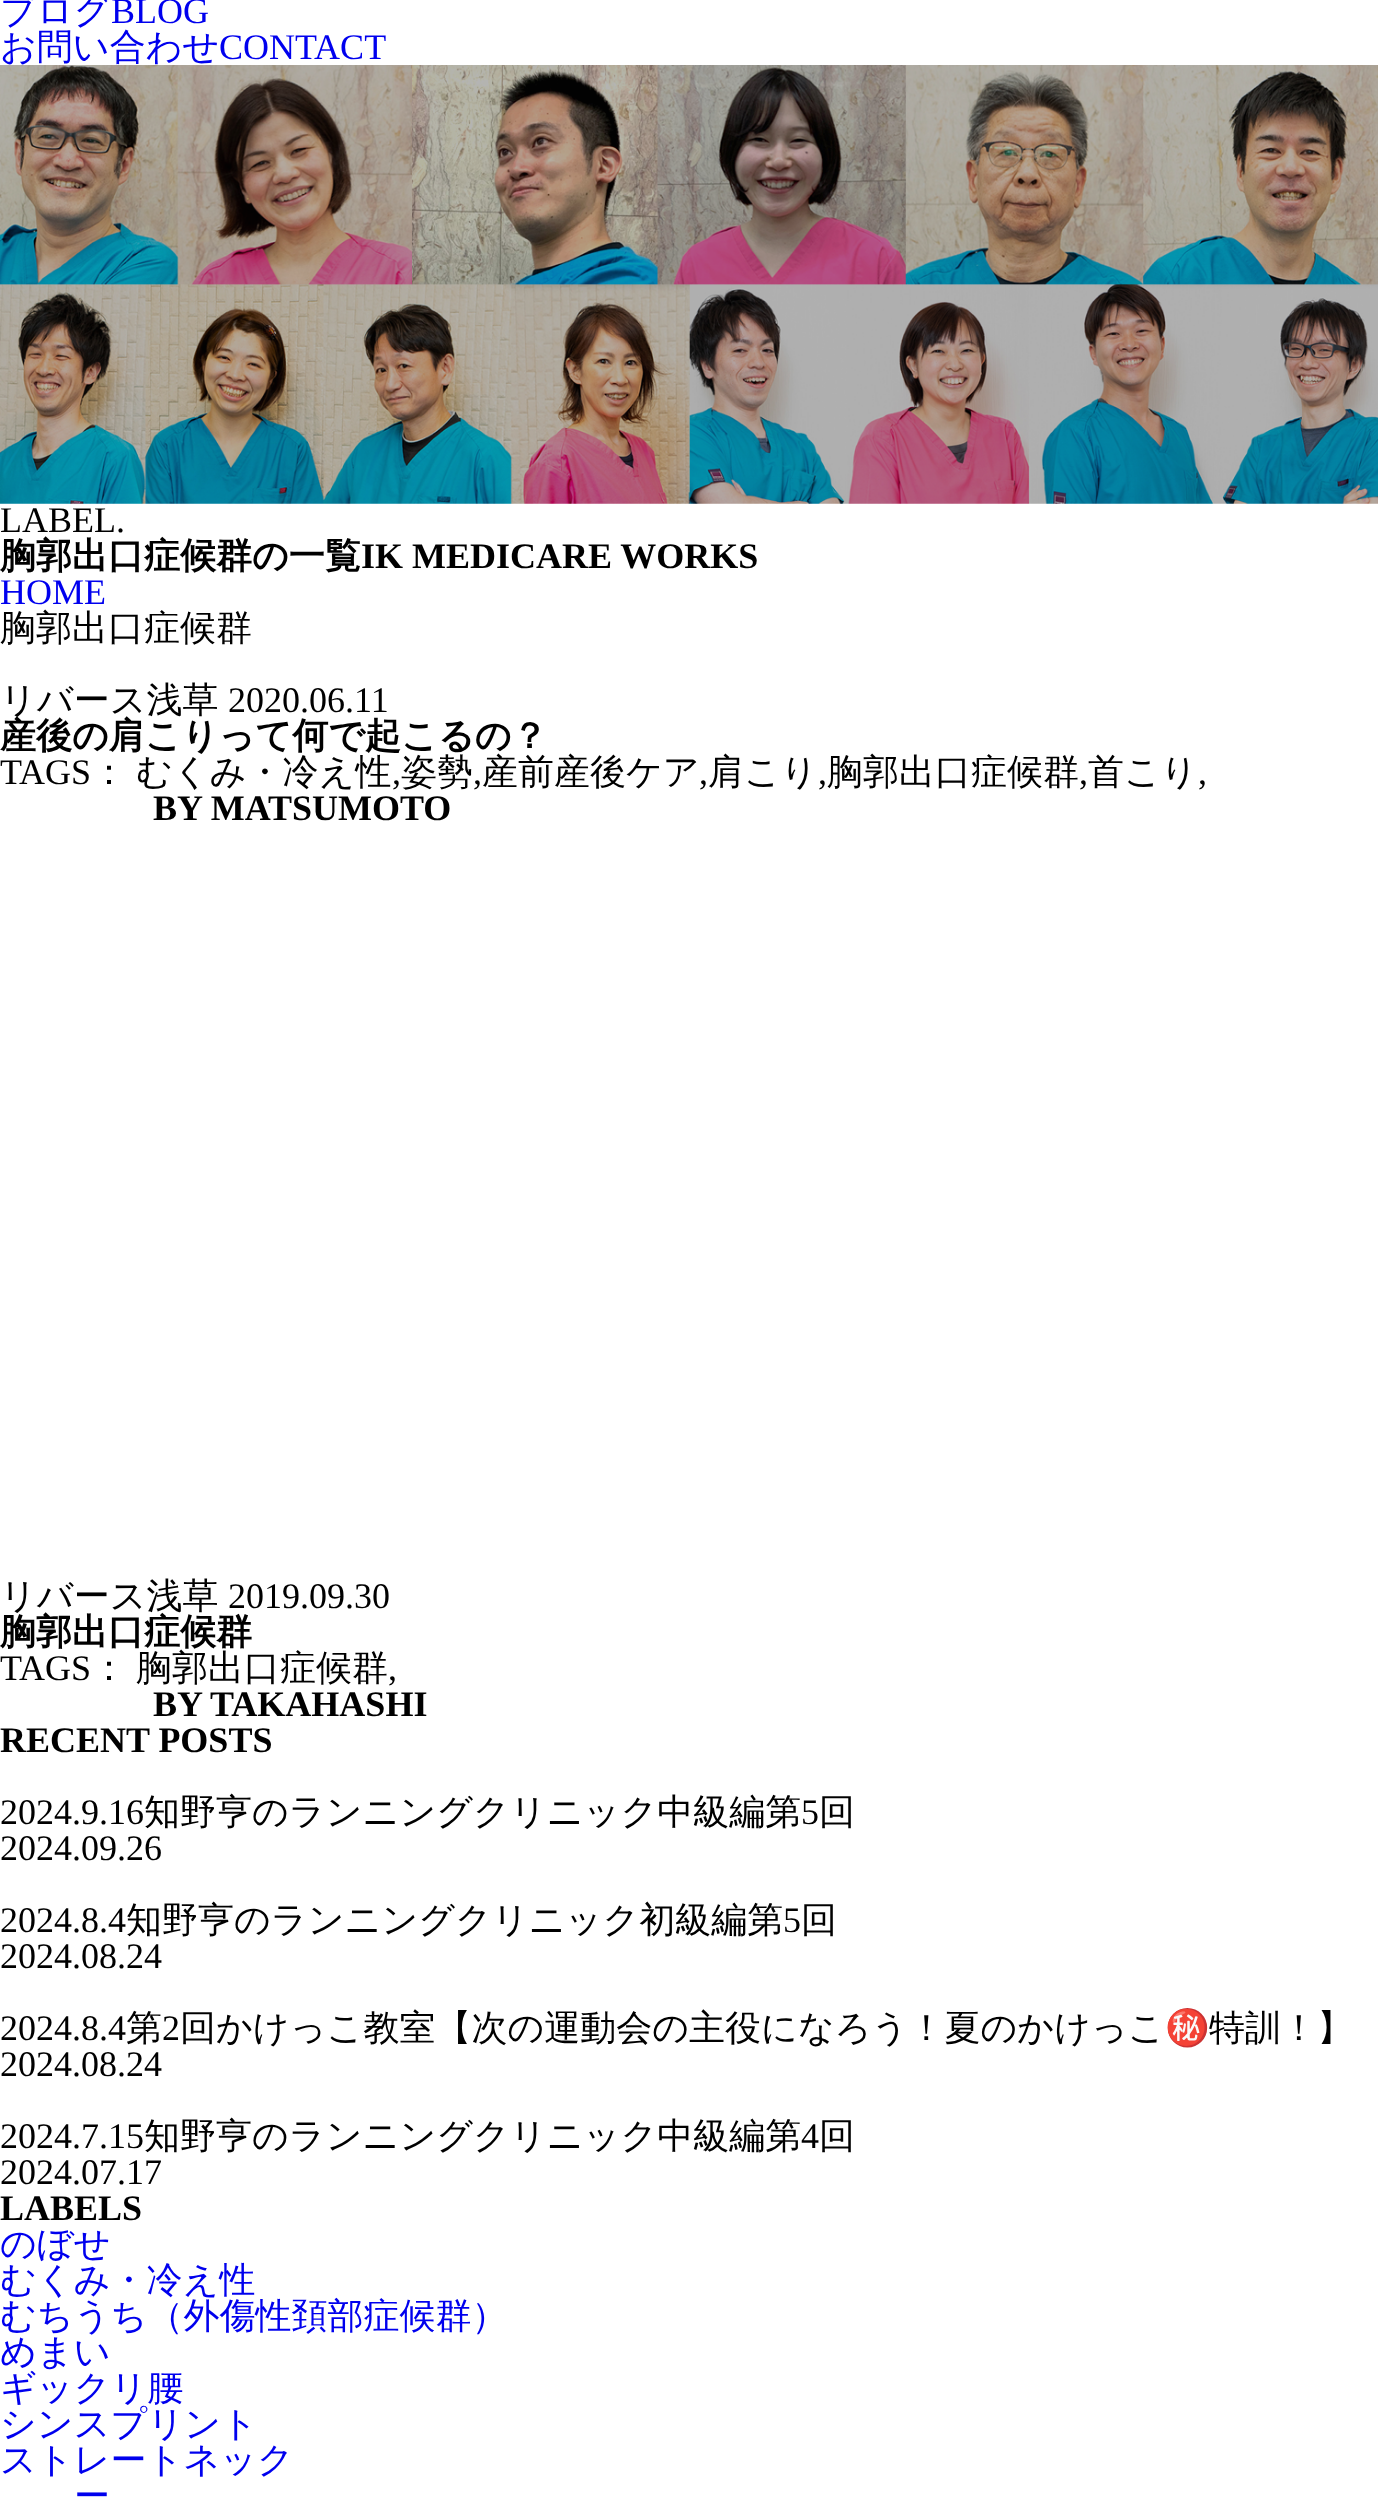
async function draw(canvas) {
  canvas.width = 1378
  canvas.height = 2497
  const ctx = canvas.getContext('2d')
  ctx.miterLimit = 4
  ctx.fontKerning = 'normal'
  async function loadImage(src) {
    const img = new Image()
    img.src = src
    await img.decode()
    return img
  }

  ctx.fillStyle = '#fff'
  ctx.fillRect(0, 0, 1378, 2497)
  ctx.font = '500 36px WenQuanYi Zen Hei'
  ctx.fillStyle = '#00e'
  ctx.fillText('ブログ', 0, 23)
  ctx.font = '36px Liberation Serif'
  ctx.fillText('BLOG', 111, 23)
  ctx.font = '500 36px WenQuanYi Zen Hei'
  ctx.fillText('お問い合わせ', 0, 59)
  ctx.font = '36px Liberation Serif'
  ctx.fillText('CONTACT', 219, 59)
  ctx.drawImage(await loadImage('image0.png'), 0, 65, 1378, 439)
  ctx.fillStyle = '#000'
  ctx.fillText('LABEL.', 0, 532)
  ctx.font = 'bold 36px WenQuanYi Zen Hei'
  ctx.fillText('胸郭出口症候群の一覧', 0, 568)
  ctx.font = 'bold 36px Liberation Serif'
  ctx.fillText('IK MEDICARE WORKS', 361, 568)
  ctx.font = '36px Liberation Serif'
  ctx.fillStyle = '#00e'
  ctx.fillText('HOME', 0, 604)
  ctx.font = '500 36px WenQuanYi Zen Hei'
  ctx.fillStyle = '#000'
  ctx.fillText('胸郭出口症候群', 0, 640)
  ctx.fillText('リバース浅草', 0, 712)
  ctx.font = '36px Liberation Serif'
  ctx.fillText('2020.06.11', 228, 712)
  ctx.font = 'bold 36px WenQuanYi Zen Hei'
  ctx.fillText('産後の肩こりって何で起こるの？', 0, 748)
  ctx.font = '36px Liberation Serif'
  ctx.fillText('TAGS', 0, 784)
  ctx.font = '500 36px WenQuanYi Zen Hei'
  ctx.fillText('：', 91, 784)
  ctx.fillText('むくみ・冷え性', 136, 784)
  ctx.fillText('姿勢', 401, 784)
  ctx.fillText('産前産後ケア', 482, 784)
  ctx.fillText('肩こり', 708, 784)
  ctx.fillText('胸郭出口症候群', 827, 784)
  ctx.fillText('首こり', 1088, 784)
  ctx.font = '36px Liberation Serif'
  ctx.fillText(',', 392, 784)
  ctx.fillText(',', 473, 784)
  ctx.fillText(',', 699, 784)
  ctx.fillText(',', 818, 784)
  ctx.fillText(',', 1079, 784)
  ctx.fillText(',', 1198, 784)
  ctx.font = 'bold 36px Liberation Serif'
  ctx.fillText('BY MATSUMOTO', 153, 820)
  ctx.font = '500 36px WenQuanYi Zen Hei'
  ctx.fillText('リバース浅草', 0, 1608)
  ctx.font = '36px Liberation Serif'
  ctx.fillText('2019.09.30', 228, 1608)
  ctx.font = 'bold 36px WenQuanYi Zen Hei'
  ctx.fillText('胸郭出口症候群', 0, 1644)
  ctx.font = '36px Liberation Serif'
  ctx.fillText('TAGS', 0, 1680)
  ctx.font = '500 36px WenQuanYi Zen Hei'
  ctx.fillText('：', 91, 1680)
  ctx.fillText('胸郭出口症候群', 136, 1680)
  ctx.font = '36px Liberation Serif'
  ctx.fillText(',', 388, 1680)
  ctx.font = 'bold 36px Liberation Serif'
  ctx.fillText('BY TAKAHASHI', 153, 1716)
  ctx.fillText('RECENT POSTS', 0, 1752)
  ctx.font = '36px Liberation Serif'
  ctx.fillText('2024.9.16', 0, 1824)
  ctx.font = '500 36px WenQuanYi Zen Hei'
  ctx.fillText('知野亨のランニングクリニック中級編第', 144, 1824)
  ctx.font = '36px Liberation Serif'
  ctx.fillText('5', 801, 1824)
  ctx.font = '500 36px WenQuanYi Zen Hei'
  ctx.fillText('回', 819, 1824)
  ctx.font = '36px Liberation Serif'
  ctx.fillText('2024.09.26', 0, 1860)
  ctx.fillText('2024.8.4', 0, 1932)
  ctx.font = '500 36px WenQuanYi Zen Hei'
  ctx.fillText('知野亨のランニングクリニック初級編第', 126, 1932)
  ctx.font = '36px Liberation Serif'
  ctx.fillText('5', 783, 1932)
  ctx.font = '500 36px WenQuanYi Zen Hei'
  ctx.fillText('回', 801, 1932)
  ctx.font = '36px Liberation Serif'
  ctx.fillText('2024.08.24', 0, 1968)
  ctx.fillText('2024.8.4', 0, 2040)
  ctx.font = '500 36px WenQuanYi Zen Hei'
  ctx.fillText('第', 126, 2040)
  ctx.font = '36px Liberation Serif'
  ctx.fillText('2', 162, 2040)
  ctx.font = '500 36px WenQuanYi Zen Hei'
  ctx.fillText('回かけっこ教室【次の運動会の主役になろう！夏のかけっこ', 180, 2040)
  ctx.font = '36px Noto Color Emoji'
  ctx.fillText('㊙️', 1165, 2040)
  ctx.font = '500 36px WenQuanYi Zen Hei'
  ctx.fillText('特訓！】', 1209, 2040)
  ctx.font = '36px Liberation Serif'
  ctx.fillText('2024.08.24', 0, 2076)
  ctx.fillText('2024.7.15', 0, 2148)
  ctx.font = '500 36px WenQuanYi Zen Hei'
  ctx.fillText('知野亨のランニングクリニック中級編第', 144, 2148)
  ctx.font = '36px Liberation Serif'
  ctx.fillText('4', 801, 2148)
  ctx.font = '500 36px WenQuanYi Zen Hei'
  ctx.fillText('回', 819, 2148)
  ctx.font = '36px Liberation Serif'
  ctx.fillText('2024.07.17', 0, 2184)
  ctx.font = 'bold 36px Liberation Serif'
  ctx.fillText('LABELS', 0, 2220)
  ctx.font = '500 36px WenQuanYi Zen Hei'
  ctx.fillStyle = '#00e'
  ctx.fillText('のぼせ', 0, 2256)
  ctx.fillText('むくみ・冷え性', 0, 2292)
  ctx.fillText('むちうち（外傷性頚部症候群）', 0, 2328)
  ctx.fillText('めまい', 0, 2364)
  ctx.fillText('ギックリ腰', 0, 2400)
  ctx.fillText('シンスプリント', 0, 2436)
  ctx.fillText('ストレートネック', 0, 2472)
  ctx.fillText('ー', 74, 2508)
}

draw(document.querySelector('canvas'))
